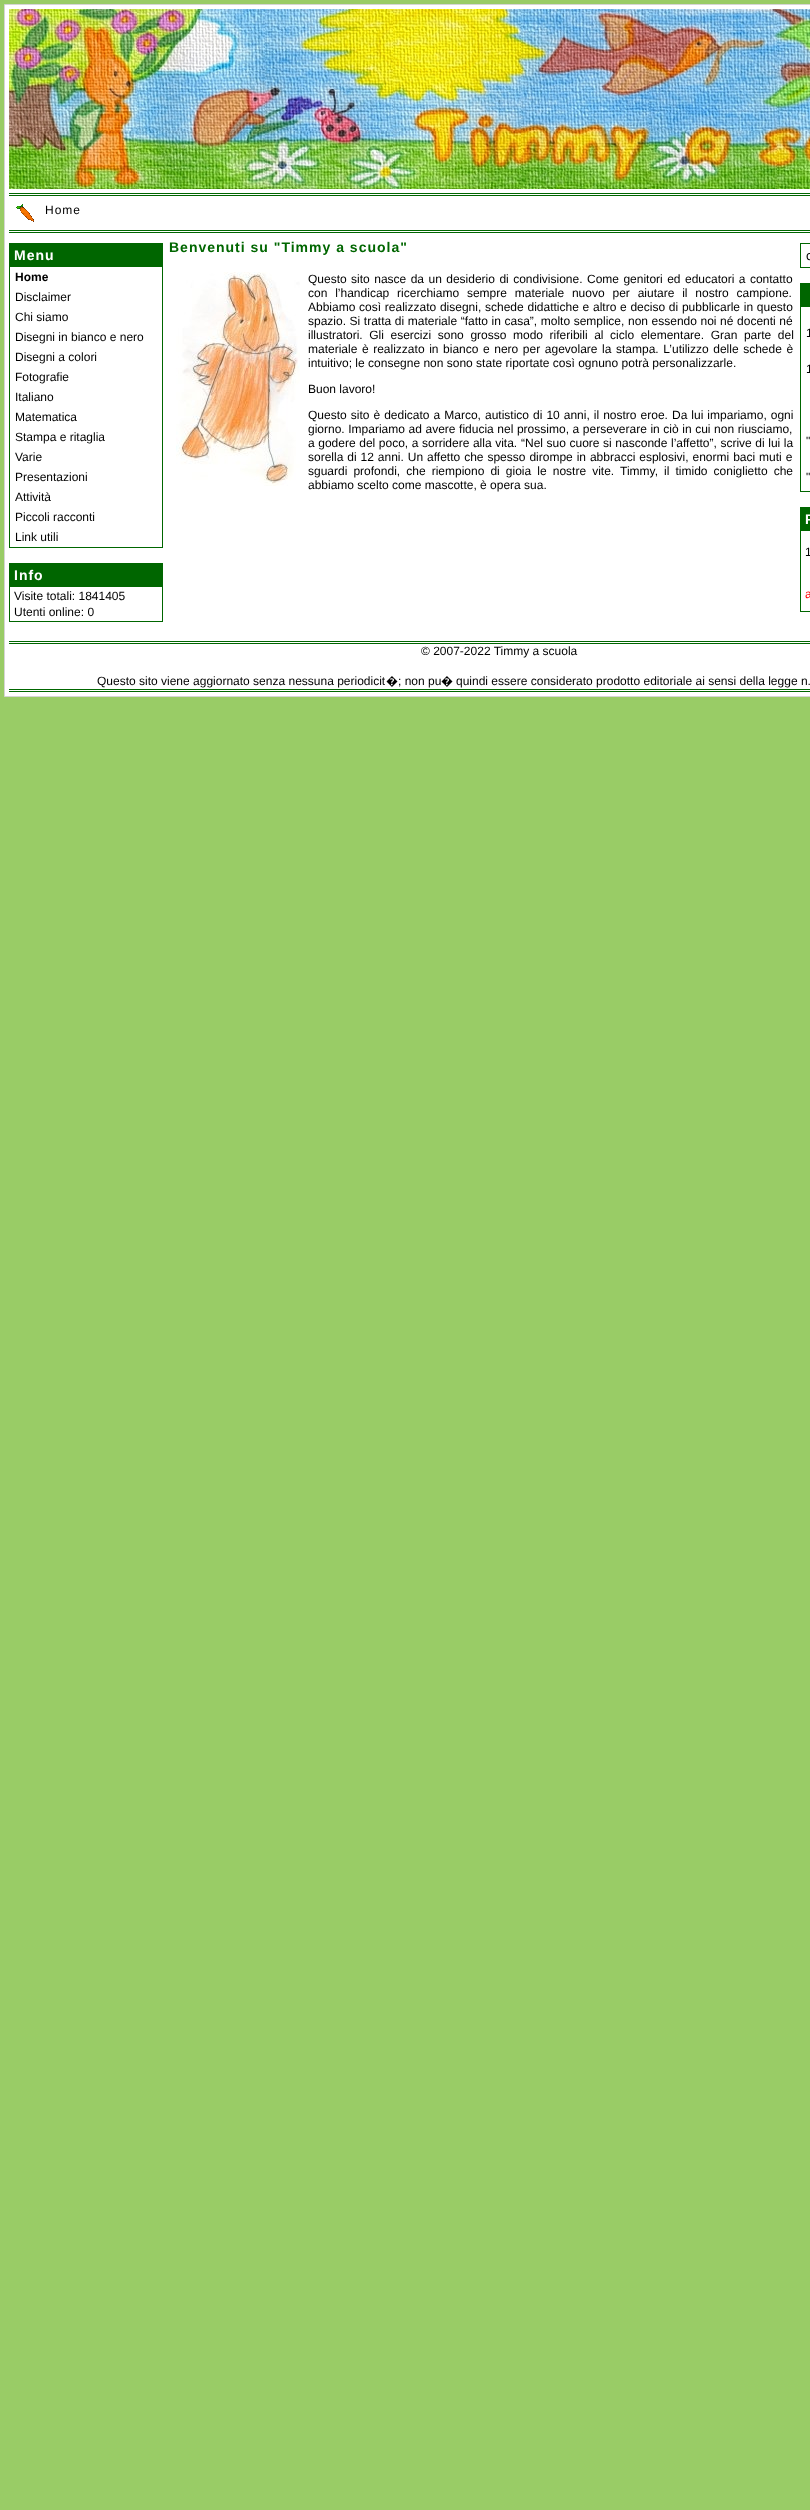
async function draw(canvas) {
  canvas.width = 810
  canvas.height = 2510
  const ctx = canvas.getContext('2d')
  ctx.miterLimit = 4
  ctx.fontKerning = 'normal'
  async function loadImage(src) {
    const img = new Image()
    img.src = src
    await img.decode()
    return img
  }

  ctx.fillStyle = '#9c6'
  ctx.fillRect(0, 0, 810, 2510)
  ctx.fillStyle = '#fff'
  ctx.beginPath()
  ctx.rect(4.5, 4.5, 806, 692)
  ctx.fill()
  ctx.strokeStyle = '#d6d5d5'
  ctx.stroke()
  ctx.drawImage(await loadImage('image0.png'), 9, 9, 801, 180)
  ctx.fillStyle = '#060'
  ctx.fillRect(9, 193, 801, 1)
  ctx.fillRect(9, 195, 801, 1)
  ctx.fillRect(9, 230, 801, 1)
  ctx.fillRect(9, 232, 801, 1)
  ctx.drawImage(await loadImage('image1.png'), 16, 204, 18, 18)
  ctx.letterSpacing = '1px'
  ctx.font = '12px Liberation Sans'
  ctx.fillStyle = '#000'
  ctx.fillText('Home', 45, 214)
  ctx.strokeStyle = '#060'
  ctx.strokeRect(9.5, 243.5, 153, 304)
  ctx.fillStyle = '#060'
  ctx.fillRect(10, 244, 152, 23)
  ctx.font = 'bold 14px Liberation Sans'
  ctx.fillStyle = '#fff'
  ctx.fillText('Menu', 14, 260)
  ctx.letterSpacing = '0px'
  ctx.font = 'bold 12px Liberation Sans'
  ctx.fillStyle = '#000'
  ctx.fillText('Home', 15, 281)
  ctx.font = '12px Liberation Sans'
  ctx.fillText('Disclaimer', 15, 301)
  ctx.fillText('Chi siamo', 15, 321)
  ctx.fillText('Disegni in bianco e nero', 15, 341)
  ctx.fillText('Disegni a colori', 15, 361)
  ctx.fillText('Fotografie', 15, 381)
  ctx.fillText('Italiano', 15, 401)
  ctx.fillText('Matematica', 15, 421)
  ctx.fillText('Stampa e ritaglia', 15, 441)
  ctx.fillText('Varie', 15, 461)
  ctx.fillText('Presentazioni', 15, 481)
  ctx.fillText('Attività', 15, 501)
  ctx.fillText('Piccoli racconti', 15, 521)
  ctx.fillText('Link utili', 15, 541)
  ctx.strokeRect(9.5, 563.5, 153, 58)
  ctx.fillStyle = '#060'
  ctx.fillRect(10, 564, 152, 23)
  ctx.letterSpacing = '1px'
  ctx.font = 'bold 14px Liberation Sans'
  ctx.fillStyle = '#fff'
  ctx.fillText('Info', 14, 580)
  ctx.letterSpacing = '0px'
  ctx.font = '12px Liberation Sans'
  ctx.fillStyle = '#000'
  ctx.fillText('Visite totali: 1841405', 14, 600)
  ctx.fillText('Utenti online: 0', 14, 616)
  ctx.letterSpacing = '1px'
  ctx.font = 'bold 14px Liberation Sans'
  ctx.fillStyle = '#060'
  ctx.fillText('Benvenuti su "Timmy a scuola"', 169, 252)
  ctx.drawImage(await loadImage('image2.png'), 176, 272, 124, 214)
  ctx.letterSpacing = '0px'
  ctx.wordSpacing = '1.1px'
  ctx.font = '12px Liberation Sans'
  ctx.fillStyle = '#000'
  ctx.fillText('Questo sito nasce da un desiderio di condivisione. Come genitori ed educatori a contatto', 308, 283)
  ctx.wordSpacing = '4.5px'
  ctx.fillText('con l’handicap ricerchiamo sempre materiale nuovo per aiutare il nostro campione.', 308, 297)
  ctx.wordSpacing = '0.4px'
  ctx.fillText('Abbiamo così realizzato disegni, schede didattiche e altro e deciso di pubblicarle in questo', 308, 311)
  ctx.wordSpacing = '0.25px'
  ctx.fillText('spazio. Si tratta di materiale “fatto in casa”, molto semplice, non essendo noi né docenti né', 308, 325)
  ctx.wordSpacing = '3.25px'
  ctx.fillText('illustratori. Gli esercizi sono grosso modo riferibili al ciclo elementare. Gran parte del', 308, 339)
  ctx.wordSpacing = '1.25px'
  ctx.fillText('materiale è realizzato in bianco e nero per agevolare la stampa. L’utilizzo delle schede è', 308, 353)
  ctx.wordSpacing = '0px'
  ctx.fillText('intuitivo; le consegne non sono state riportate così ognuno potrà personalizzarle.', 308, 367)
  ctx.fillText('Buon lavoro!', 308, 393)
  ctx.wordSpacing = '0.7px'
  ctx.fillText('Questo sito è dedicato a Marco, autistico di 10 anni, il nostro eroe. Da lui impariamo, ogni', 308, 419)
  ctx.wordSpacing = '0.25px'
  ctx.fillText('giorno. Impariamo ad avere fiducia nel prossimo, a perseverare in ciò in cui non riusciamo,', 308, 433)
  ctx.fillText('a godere del poco, a sorridere alla vita.', 308, 447)
  ctx.wordSpacing = '0px'
  ctx.fillText('“', 521, 447)
  ctx.wordSpacing = '0.25px'
  ctx.fillText('Nel suo cuore si nasconde l’affetto”, scrive di lui la', 525, 447)
  ctx.wordSpacing = '0.6px'
  ctx.fillText('sorella di 12 anni. Un affetto che spesso dirompe in abbracci esplosivi, enormi baci muti e', 308, 461)
  ctx.wordSpacing = '2.75px'
  ctx.fillText('sguardi profondi, che riempiono di gioia le nostre vite.', 308, 475)
  ctx.fillText('Timmy, il timido coniglietto che', 620, 475)
  ctx.wordSpacing = '0px'
  ctx.fillText('abbiamo scelto come mascotte, è opera sua.', 308, 489)
  ctx.strokeRect(800.5, 243.5, 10, 24)
  ctx.font = '13px Liberation Sans'
  ctx.fillText('c', 806, 260)
  ctx.strokeRect(800.5, 283.5, 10, 208)
  ctx.fillStyle = '#060'
  ctx.fillRect(801, 284, 9, 23)
  ctx.font = '12px Liberation Sans'
  ctx.fillStyle = '#000'
  ctx.fillText('1', 806, 337)
  ctx.fillText('1', 806, 373)
  ctx.fillText('"', 806, 445)
  ctx.fillText('"', 806, 481)
  ctx.strokeRect(800.5, 507.5, 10, 104)
  ctx.fillStyle = '#060'
  ctx.fillRect(801, 508, 9, 23)
  ctx.letterSpacing = '1px'
  ctx.font = 'bold 14px Liberation Sans'
  ctx.fillStyle = '#fff'
  ctx.fillText('F', 805, 524)
  ctx.letterSpacing = '0px'
  ctx.font = '12px Liberation Sans'
  ctx.fillStyle = '#000'
  ctx.fillText('1', 805, 556)
  ctx.fillStyle = '#f00'
  ctx.fillText('a', 805, 598)
  ctx.fillStyle = '#060'
  ctx.fillRect(9, 641, 801, 1)
  ctx.fillRect(9, 643, 801, 1)
  ctx.fillRect(9, 689, 801, 1)
  ctx.fillRect(9, 691, 801, 1)
  ctx.fillStyle = '#000'
  ctx.fillText('© 2007-2022 Timmy a scuola', 421, 655)
  ctx.fillText('Questo sito viene aggiornato senza nessuna periodicit', 97, 685)
  ctx.font = '12px Noto Sans'
  ctx.fillText('�', 386, 685)
  ctx.font = '12px Liberation Sans'
  ctx.fillText('; non pu', 398, 685)
  ctx.font = '12px Noto Sans'
  ctx.fillText('�', 441, 685)
  ctx.font = '12px Liberation Sans'
  ctx.fillText('quindi essere considerato prodotto editoriale ai sensi della legge n.', 456, 685)
}

draw(document.querySelector('canvas'))
